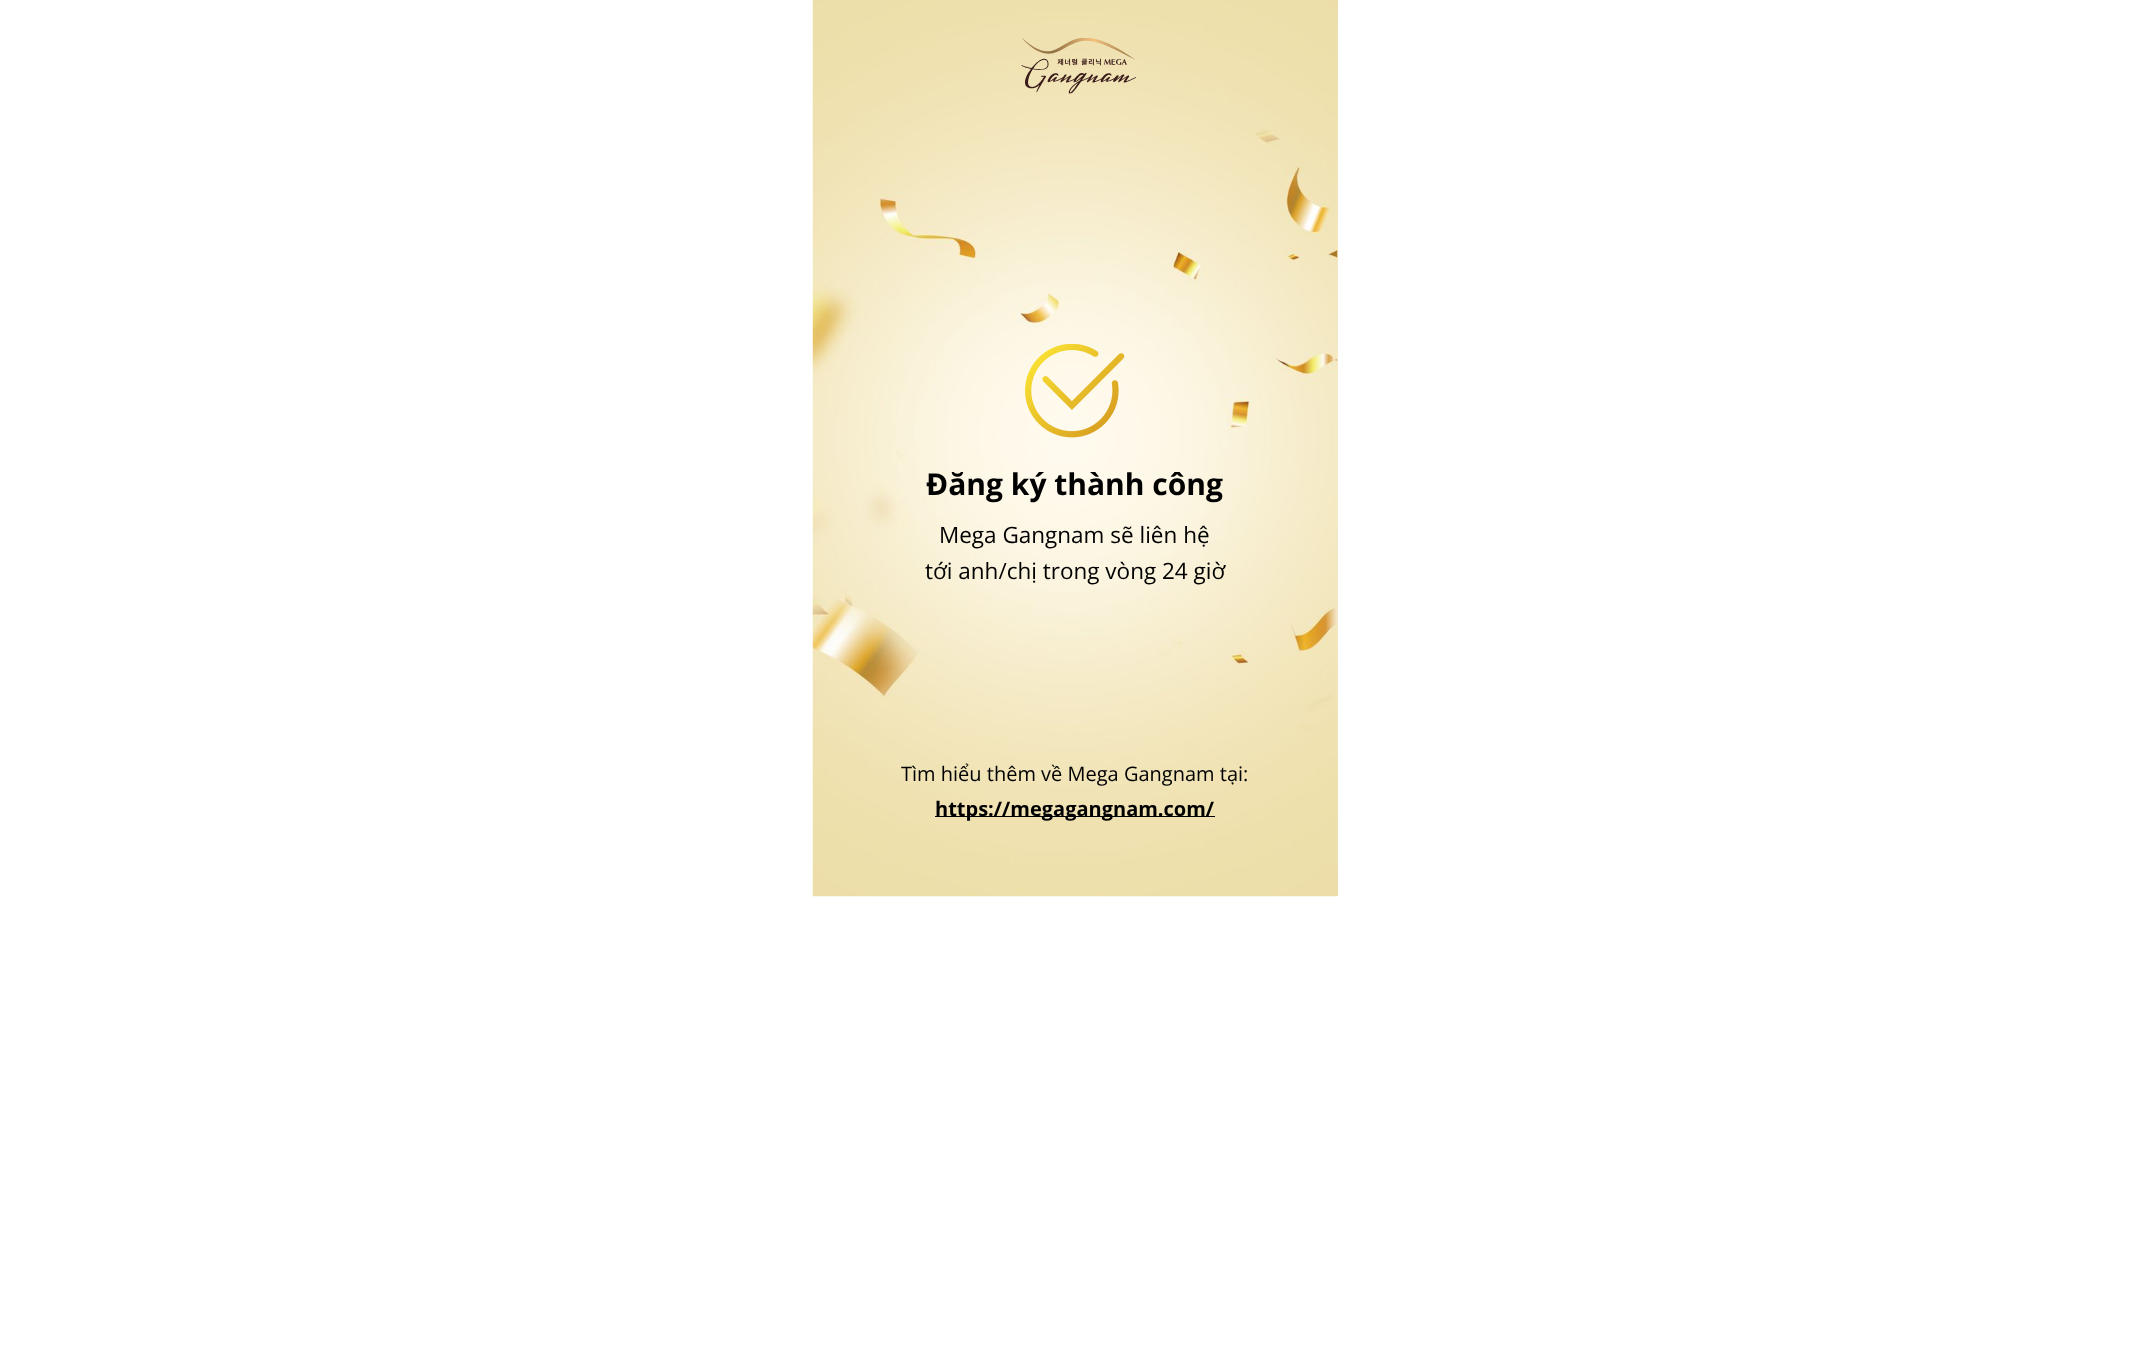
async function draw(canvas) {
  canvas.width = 2149
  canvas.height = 1366
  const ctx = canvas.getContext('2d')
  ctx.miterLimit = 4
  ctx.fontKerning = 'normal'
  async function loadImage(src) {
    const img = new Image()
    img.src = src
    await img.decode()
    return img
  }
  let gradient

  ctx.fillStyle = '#fff'
  ctx.fillRect(0, 0, 2149, 1366)
  gradient = ctx.createRadialGradient(1075, 448, 0, 1075, 448, 519)
  gradient.addColorStop(0, '#fffaed')
  gradient.addColorStop(1, '#eddea9')
  ctx.fillStyle = gradient
  ctx.fillRect(1337, 0, 1, 896)
  ctx.drawImage(await loadImage('image0.png'), 812, 0, 526, 897)
  ctx.drawImage(await loadImage('image1.png'), 1021, 38, 115, 56)
  ctx.drawImage(await loadImage('image2.png'), 1025, 344, 100, 94)
  ctx.font = 'bold 30px Open Sans'
  ctx.fillStyle = '#000'
  ctx.fillText('Đăng ký thành công', 926, 495)
  ctx.font = '22.5px Open Sans'
  ctx.fillText('Mega Gangnam sẽ liên hệ', 939, 543)
  ctx.fillText('tới anh/chị trong vòng 24 giờ', 925, 579)
  ctx.font = '20px Open Sans'
  ctx.fillText('Tìm hiểu thêm về Mega Gangnam tại:', 901, 781)
  ctx.fillRect(935, 816, 280, 1)
  ctx.font = 'bold 20px Open Sans'
  ctx.fillText('https://megagangnam.com/', 935, 816)
}

draw(document.querySelector('canvas'))
